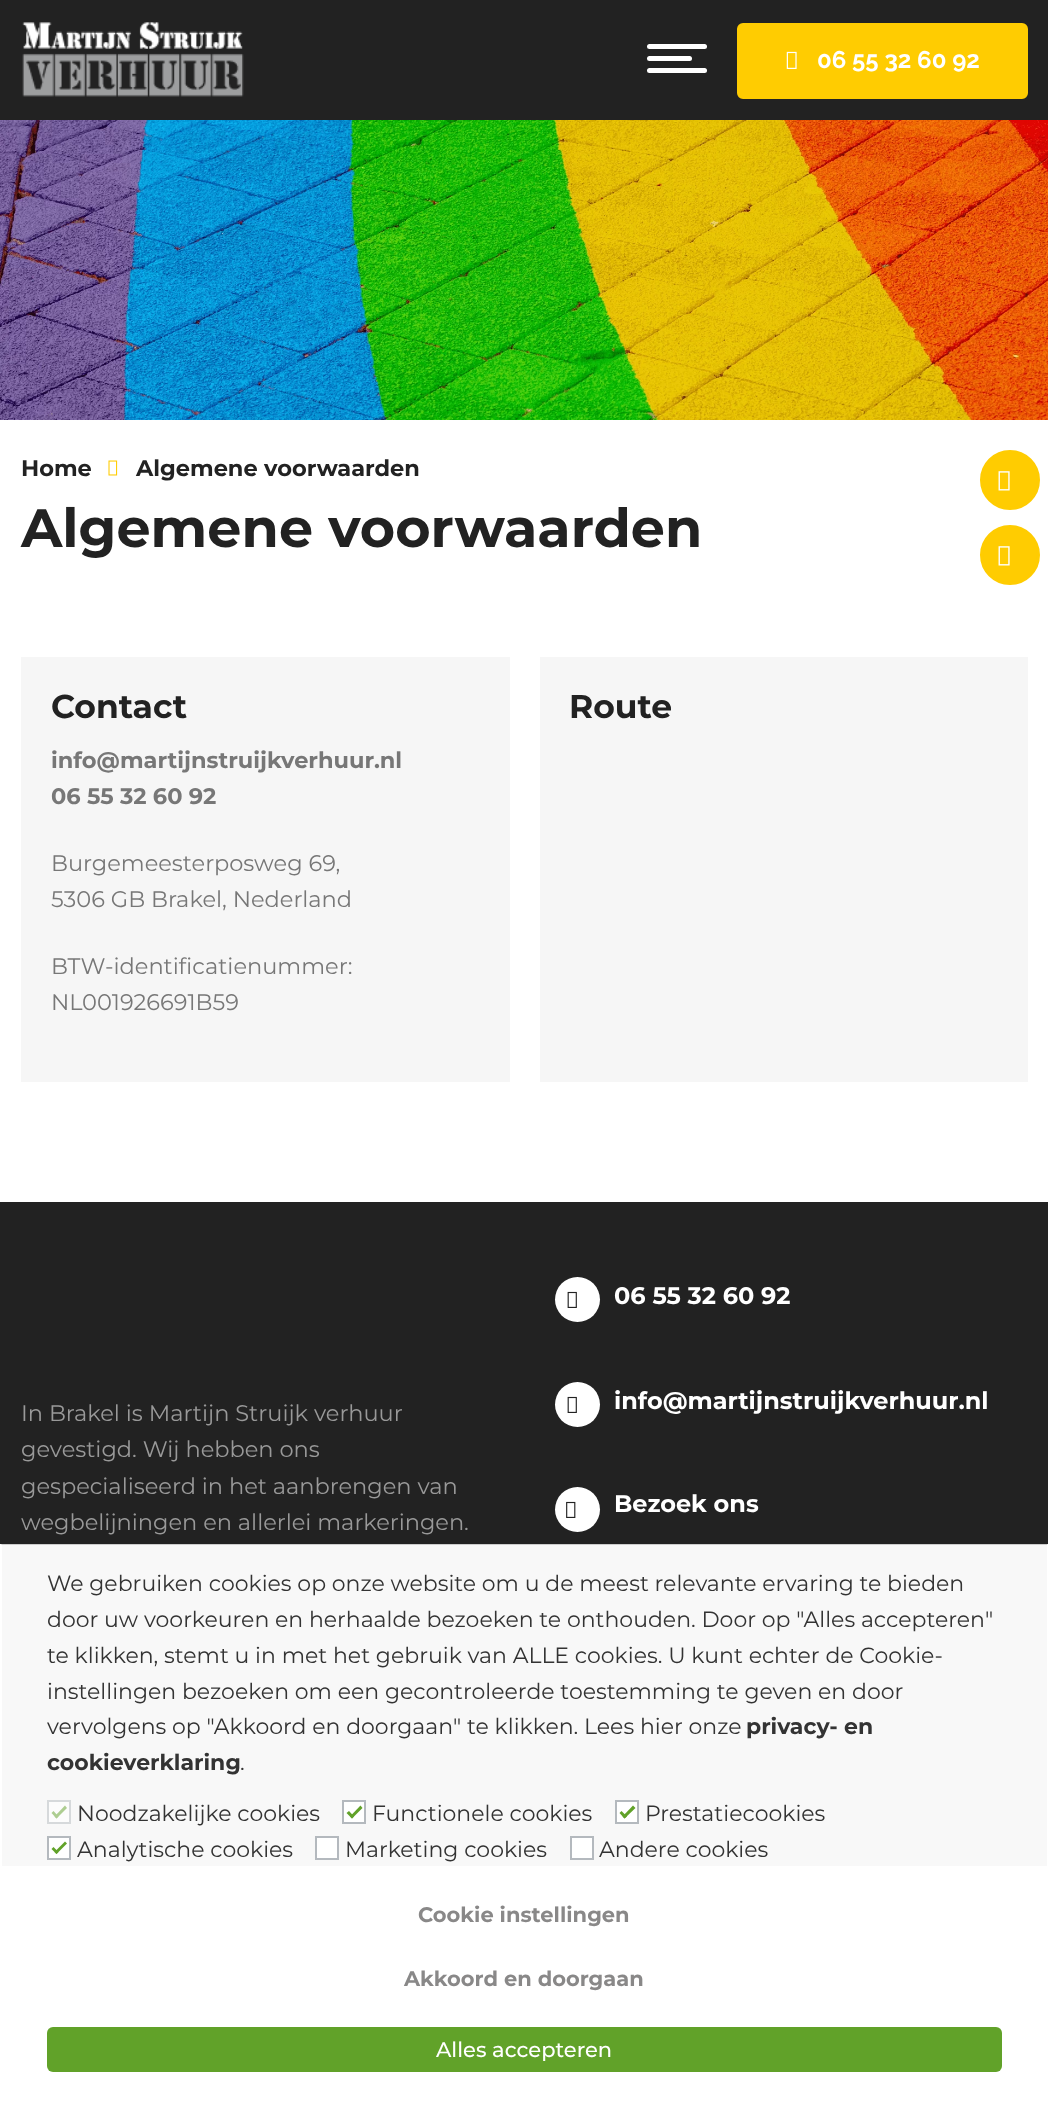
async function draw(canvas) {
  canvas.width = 1048
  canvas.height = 2110
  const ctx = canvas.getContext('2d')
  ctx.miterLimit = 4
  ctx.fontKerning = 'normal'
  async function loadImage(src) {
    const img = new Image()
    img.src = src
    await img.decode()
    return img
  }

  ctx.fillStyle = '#fff'
  ctx.fillRect(0, 0, 1048, 2110)
  ctx.fillStyle = '#222'
  ctx.fillRect(0, 0, 1048, 120)
  ctx.drawImage(await loadImage('image0.png'), 22, 22, 222, 75)
  ctx.fillStyle = '#fff'
  ctx.beginPath()
  ctx.roundRect(647, 56, 45, 5, 2.5)
  ctx.fill()
  ctx.beginPath()
  ctx.roundRect(647, 44, 60, 5, 2.5)
  ctx.fill()
  ctx.beginPath()
  ctx.roundRect(647, 68, 60, 5, 2.5)
  ctx.fill()
  ctx.fillStyle = '#ffcc01'
  ctx.beginPath()
  ctx.roundRect(738.5, 24.5, 288, 73, 4.5)
  ctx.fill()
  ctx.strokeStyle = '#ffcc01'
  ctx.lineWidth = 3
  ctx.stroke()
  ctx.drawImage(await loadImage('image1.png'), 786, 51, 11, 18)
  ctx.font = 'bold 24px Raleway'
  ctx.fillStyle = '#fff'
  ctx.fillText('06 55 32 60 92', 817, 68)
  ctx.drawImage(await loadImage('image2.png'), 0, 120, 1048, 300)
  ctx.font = 'bold 22.5px Montserrat'
  ctx.fillStyle = '#222'
  ctx.fillText('Home', 21, 476)
  ctx.drawImage(await loadImage('image3.png'), 108, 460, 10, 16)
  ctx.fillText('Algemene voorwaarden', 136, 476)
  ctx.fillStyle = '#ffcc01'
  ctx.beginPath()
  ctx.arc(1010, 480, 28.5, 0, 2 * Math.PI)
  ctx.fill()
  ctx.stroke()
  ctx.drawImage(await loadImage('image4.png'), 998, 471, 12, 20)
  ctx.beginPath()
  ctx.arc(1010, 555, 28.5, 0, 2 * Math.PI)
  ctx.fill()
  ctx.stroke()
  ctx.drawImage(await loadImage('image4.png'), 998, 546, 12, 20)
  ctx.font = 'bold 54px Montserrat'
  ctx.fillStyle = '#222'
  ctx.fillText('Algemene voorwaarden', 21, 547)
  ctx.fillStyle = '#f6f6f6'
  ctx.fillRect(21, 657, 489, 425)
  ctx.font = 'bold 33px Montserrat'
  ctx.fillStyle = '#222'
  ctx.fillText('Contact', 51, 718)
  ctx.font = 'bold 22.5px Montserrat'
  ctx.fillStyle = '#777'
  ctx.fillText('info@martijnstruijkverhuur.nl', 51, 768)
  ctx.fillText('06 55 32 60 92', 51, 804)
  ctx.font = '22.5px Montserrat'
  ctx.fillText('Burgemeesterposweg 69,', 51, 871)
  ctx.fillText('5306 GB Brakel, Nederland', 51, 907)
  ctx.fillText('BTW-identificatienummer:', 51, 974)
  ctx.fillText('NL001926691B59', 51, 1010)
  ctx.fillStyle = '#f6f6f6'
  ctx.fillRect(540, 657, 488, 425)
  ctx.font = 'bold 33px Montserrat'
  ctx.fillStyle = '#222'
  ctx.fillText('Route', 569, 718)
  ctx.fillStyle = '#f8f8f8'
  ctx.fillRect(0, 1544, 1048, 322)
  ctx.fillStyle = '#ccc'
  ctx.beginPath()
  ctx.moveTo(0, 1544)
  ctx.lineTo(1048, 1544)
  ctx.lineTo(1047, 1545)
  ctx.lineTo(2, 1545)
  ctx.closePath()
  ctx.fill()
  ctx.fillStyle = '#ffffffe6'
  ctx.beginPath()
  ctx.moveTo(1048, 1544)
  ctx.lineTo(1048, 2110)
  ctx.lineTo(1047, 2109)
  ctx.lineTo(1047, 1545)
  ctx.closePath()
  ctx.fill()
  ctx.beginPath()
  ctx.moveTo(0, 2110)
  ctx.lineTo(0, 1544)
  ctx.lineTo(2, 1545)
  ctx.lineTo(2, 2109)
  ctx.closePath()
  ctx.fill()
  ctx.font = '22px Montserrat'
  ctx.fillStyle = '#333'
  ctx.fillText('We gebruiken cookies op onze website om u de meest relevante ervaring te bieden', 47, 1591)
  ctx.fillText('door uw voorkeuren en herhaalde bezoeken te onthouden. Door op "Alles accepteren"', 47, 1627)
  ctx.fillText('te klikken, stemt u in met het gebruik van ALLE cookies. U kunt echter de Cookie-', 47, 1663)
  ctx.fillText('instellingen bezoeken om een gecontroleerde toestemming te geven en door', 47, 1699)
  ctx.fillText('vervolgens op "Akkoord en doorgaan" te klikken. Lees hier onze', 47, 1734)
  ctx.font = 'bold 22px Montserrat'
  ctx.fillText('privacy- en', 746, 1734)
  ctx.fillText('cookieverklaring', 47, 1770)
  ctx.font = '22px Montserrat'
  ctx.fillText('.', 240, 1770)
  ctx.fillStyle = '#fcfcfc'
  ctx.beginPath()
  ctx.rect(48, 1801, 22, 22)
  ctx.fill()
  ctx.strokeStyle = '#d6d9db'
  ctx.lineWidth = 2
  ctx.stroke()
  ctx.fillStyle = '#adcd91'
  ctx.beginPath()
  ctx.moveTo(65, 1805.5)
  ctx.lineTo(67, 1808)
  ctx.lineTo(56.5, 1818.5)
  ctx.lineTo(54.5, 1816.5)
  ctx.closePath()
  ctx.fill()
  ctx.beginPath()
  ctx.moveTo(53.5, 1811)
  ctx.lineTo(58.5, 1816.5)
  ctx.lineTo(56.5, 1818.5)
  ctx.lineTo(51.5, 1813)
  ctx.closePath()
  ctx.fill()
  ctx.fillStyle = '#333'
  ctx.fillText('Noodzakelijke cookies', 77, 1821)
  ctx.fillStyle = '#fff'
  ctx.beginPath()
  ctx.rect(343, 1801, 22, 22)
  ctx.fill()
  ctx.strokeStyle = '#b4b9be'
  ctx.stroke()
  ctx.fillStyle = '#61a229'
  ctx.beginPath()
  ctx.moveTo(360.5, 1805.5)
  ctx.lineTo(362.5, 1808)
  ctx.lineTo(352, 1818.5)
  ctx.lineTo(350, 1816.5)
  ctx.closePath()
  ctx.fill()
  ctx.beginPath()
  ctx.moveTo(349, 1811)
  ctx.lineTo(354, 1816.5)
  ctx.lineTo(352, 1818.5)
  ctx.lineTo(346.5, 1813)
  ctx.closePath()
  ctx.fill()
  ctx.fillStyle = '#333'
  ctx.fillText('Functionele cookies', 372, 1821)
  ctx.fillStyle = '#fff'
  ctx.beginPath()
  ctx.rect(616, 1801, 22, 22)
  ctx.fill()
  ctx.stroke()
  ctx.fillStyle = '#61a229'
  ctx.beginPath()
  ctx.moveTo(633, 1805.5)
  ctx.lineTo(635.5, 1808)
  ctx.lineTo(624.5, 1818.5)
  ctx.lineTo(622.5, 1816.5)
  ctx.closePath()
  ctx.fill()
  ctx.beginPath()
  ctx.moveTo(621.5, 1811)
  ctx.lineTo(627, 1816.5)
  ctx.lineTo(624.5, 1818.5)
  ctx.lineTo(619.5, 1813)
  ctx.closePath()
  ctx.fill()
  ctx.fillStyle = '#333'
  ctx.fillText('Prestatiecookies', 645, 1821)
  ctx.fillStyle = '#fff'
  ctx.beginPath()
  ctx.rect(48, 1837, 22, 22)
  ctx.fill()
  ctx.stroke()
  ctx.fillStyle = '#61a229'
  ctx.beginPath()
  ctx.moveTo(65, 1841.5)
  ctx.lineTo(67, 1843.5)
  ctx.lineTo(56.5, 1854)
  ctx.lineTo(54.5, 1852)
  ctx.closePath()
  ctx.fill()
  ctx.beginPath()
  ctx.moveTo(53.5, 1847)
  ctx.lineTo(58.5, 1852)
  ctx.lineTo(56.5, 1854)
  ctx.lineTo(51.5, 1849)
  ctx.closePath()
  ctx.fill()
  ctx.fillStyle = '#333'
  ctx.fillText('Analytische cookies', 77, 1857)
  ctx.fillStyle = '#fff'
  ctx.beginPath()
  ctx.rect(316, 1837, 22, 22)
  ctx.fill()
  ctx.stroke()
  ctx.fillStyle = '#333'
  ctx.fillText('Marketing cookies', 345, 1857)
  ctx.fillStyle = '#fff'
  ctx.beginPath()
  ctx.rect(571, 1837, 22, 22)
  ctx.fill()
  ctx.stroke()
  ctx.fillStyle = '#333'
  ctx.fillText('Andere cookies', 599, 1857)
  ctx.font = 'bold 21px Montserrat'
  ctx.fillStyle = '#898888'
  ctx.fillText('Cookie instellingen', 418, 1922)
  ctx.fillText('Akkoord en doorgaan', 404, 1986)
  ctx.fillStyle = '#61a229'
  ctx.beginPath()
  ctx.roundRect(47, 2027, 955, 45, 6)
  ctx.fill()
  ctx.font = '500 21px Montserrat'
  ctx.fillStyle = '#fff'
  ctx.fillText('Alles accepteren', 436, 2057)
  ctx.fillStyle = '#222'
  ctx.fillRect(0, 1202, 1048, 342)
  ctx.font = '22.5px Montserrat'
  ctx.fillStyle = '#999'
  ctx.fillText('In Brakel is Martijn Struijk verhuur', 21, 1421)
  ctx.fillText('gevestigd. Wij hebben ons', 21, 1457)
  ctx.fillText('gespecialiseerd in het aanbrengen van', 21, 1494)
  ctx.fillText('wegbelijningen en allerlei markeringen.', 21, 1530)
  ctx.fillStyle = '#fff'
  ctx.beginPath()
  ctx.arc(577.5, 1299.5, 22.5, 0, 2 * Math.PI)
  ctx.fill()
  ctx.drawImage(await loadImage('image5.png'), 567, 1291, 10, 17)
  ctx.font = 'bold 24px Montserrat'
  ctx.fillText('06 55 32 60 92', 614, 1304)
  ctx.beginPath()
  ctx.arc(577.5, 1404.5, 22.5, 0, 2 * Math.PI)
  ctx.fill()
  ctx.drawImage(await loadImage('image5.png'), 567, 1396, 10, 17)
  ctx.fillText('info@martijnstruijkverhuur.nl', 614, 1409)
  ctx.beginPath()
  ctx.arc(577.5, 1509.5, 22.5, 0, 2 * Math.PI)
  ctx.fill()
  ctx.drawImage(await loadImage('image6.png'), 566, 1501, 10, 17)
  ctx.fillText('Bezoek ons', 614, 1512)
}

draw(document.querySelector('canvas'))
